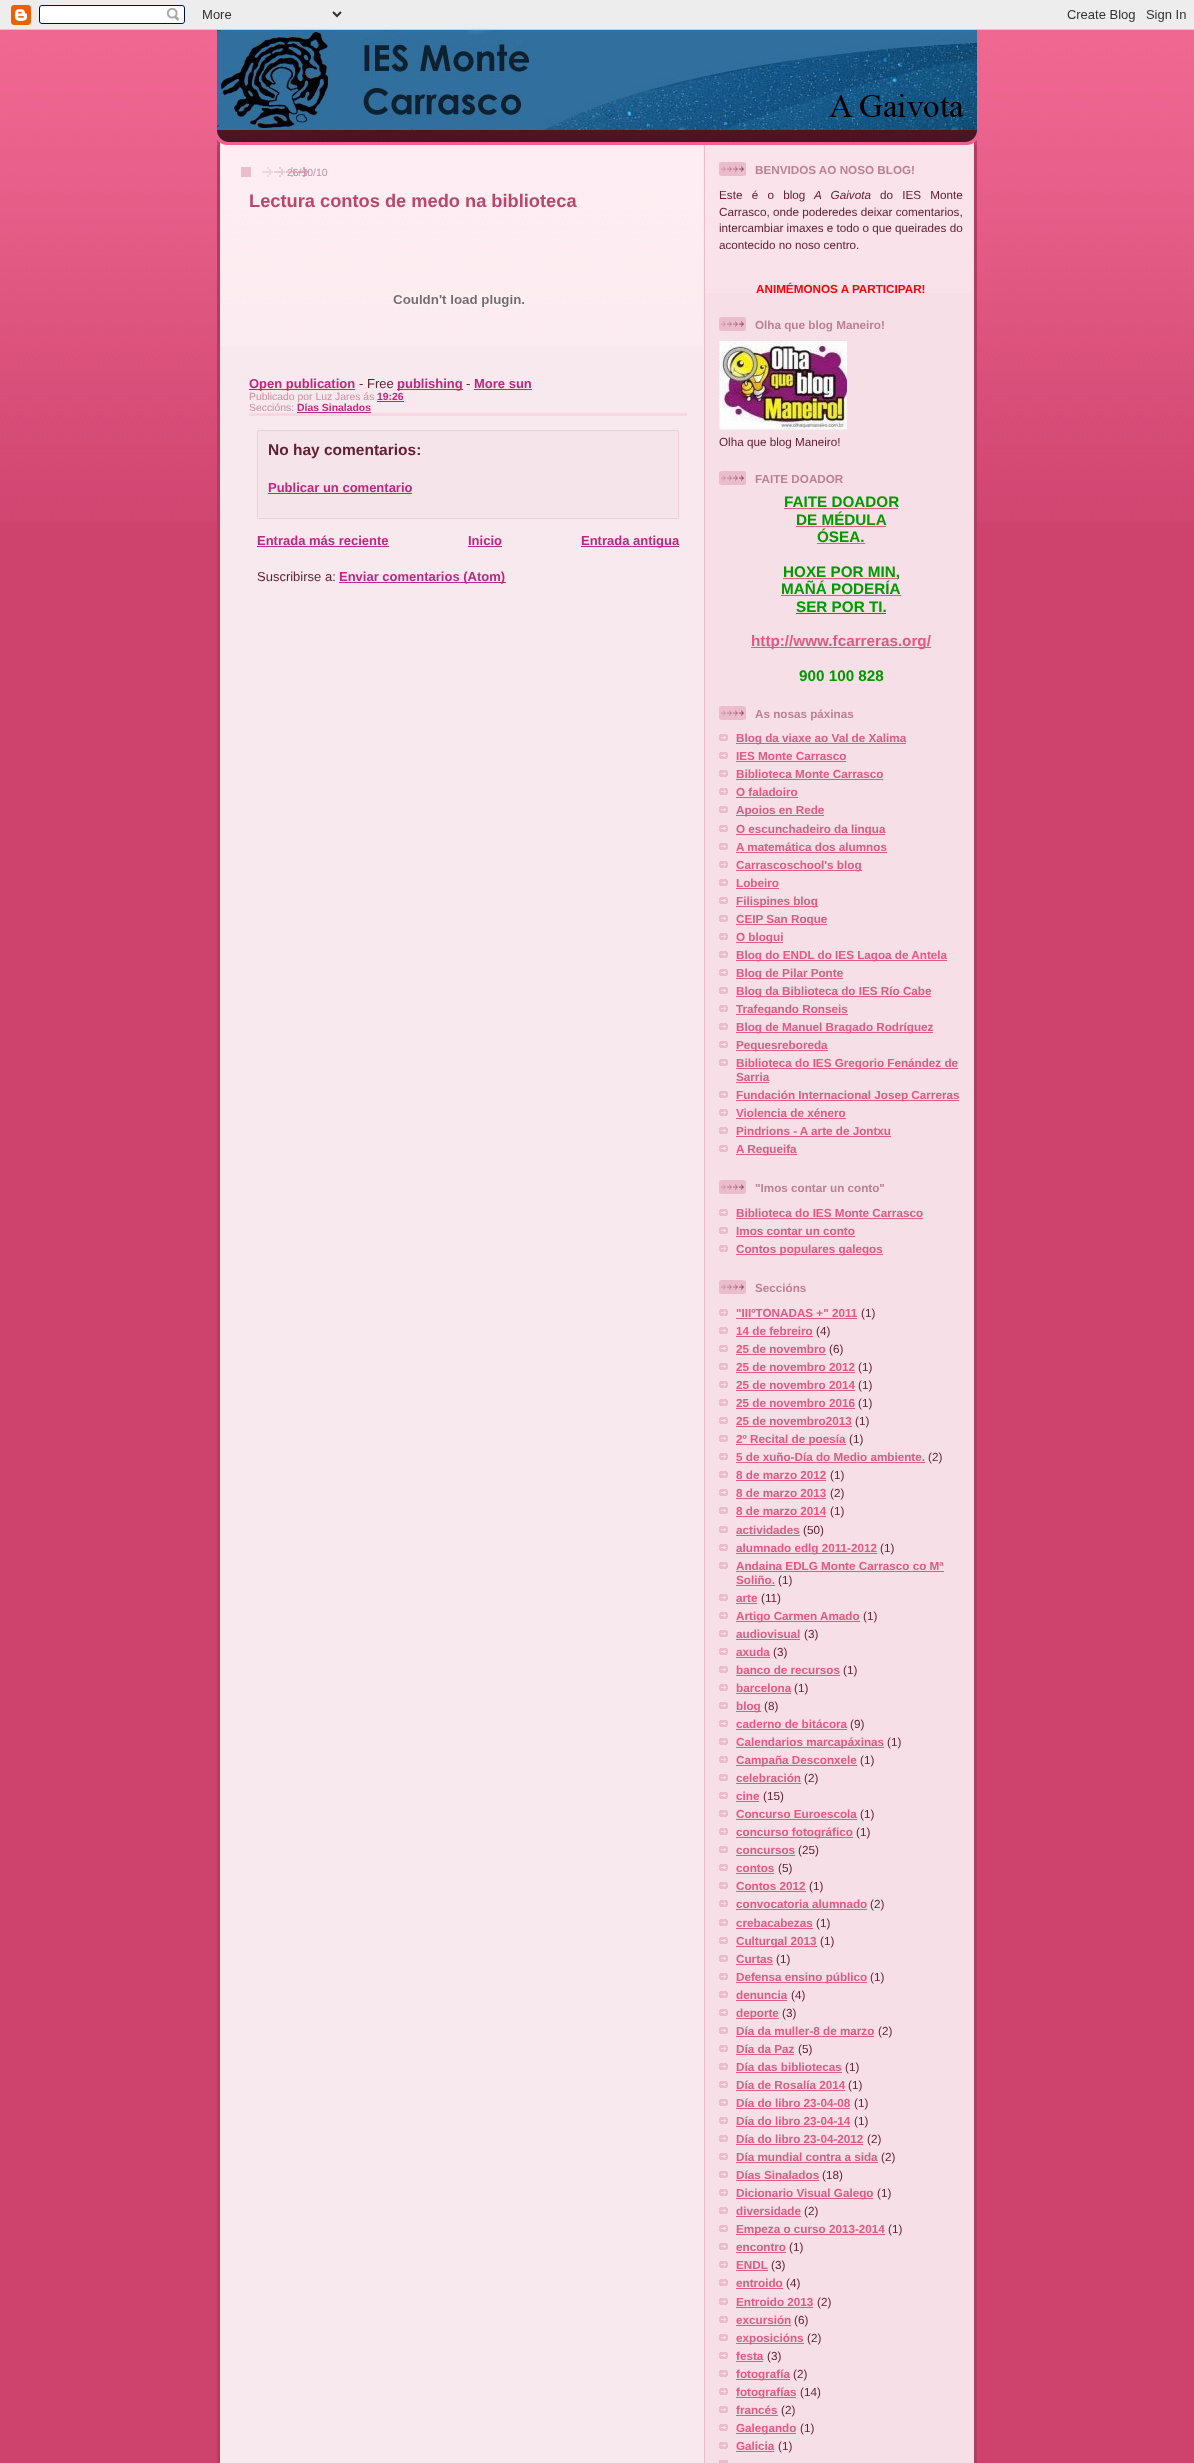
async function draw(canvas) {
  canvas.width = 1194
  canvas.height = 2463
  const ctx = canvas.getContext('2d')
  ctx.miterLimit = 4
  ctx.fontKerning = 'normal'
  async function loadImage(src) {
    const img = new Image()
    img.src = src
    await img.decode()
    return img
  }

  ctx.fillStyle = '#ce436e'
  ctx.fillRect(0, 0, 1194, 2463)
  ctx.drawImage(await loadImage('image0.png'), 0, 30, 1194, 492)
  ctx.drawImage(await loadImage('image1.png'), 0, 0, 1194, 30)
  ctx.drawImage(await loadImage('image2.png'), 217, 130, 760, 15)
  ctx.drawImage(await loadImage('image3.png'), 217, 30, 760, 100)
  ctx.drawImage(await loadImage('image4.png'), 217, 145, 760, 2318)
  ctx.drawImage(await loadImage('image5.png'), 220, 145, 483, 201)
  ctx.fillStyle = '#ebbdcc'
  ctx.fillRect(241, 167, 10, 10)
  ctx.drawImage(await loadImage('image6.png'), 262, 167, 47, 10)
  ctx.font = '10.4px Liberation Sans'
  ctx.fillStyle = '#c88fa2'
  ctx.fillText('26/10/10', 287, 176)
  ctx.fillStyle = '#f7d8e2'
  ctx.fillRect(249, 413, 438, 3)
  ctx.font = 'bold 18.25px Liberation Sans'
  ctx.fillStyle = '#ba476b'
  ctx.fillText('Lectura contos de medo na biblioteca', 249, 207)
  ctx.drawImage(await loadImage('image7.png'), 393, 295, 131, 12)
  ctx.fillStyle = '#bf277e'
  ctx.fillRect(249, 389, 106, 1)
  ctx.font = 'bold 13px Liberation Sans'
  ctx.fillText('Open publication', 249, 388)
  ctx.font = '13px Liberation Sans'
  ctx.fillStyle = '#632035'
  ctx.fillText('- Free', 359, 388)
  ctx.fillStyle = '#bf277e'
  ctx.fillRect(397, 389, 66, 1)
  ctx.font = 'bold 13px Liberation Sans'
  ctx.fillText('publishing', 397, 388)
  ctx.font = '13px Liberation Sans'
  ctx.fillStyle = '#632035'
  ctx.fillText('-', 466, 388)
  ctx.font = 'bold 13px Liberation Sans'
  ctx.fillStyle = '#bf277e'
  ctx.fillText('More sun', 474, 388)
  ctx.fillRect(474, 389, 58, 1)
  ctx.font = '10.4px Liberation Sans'
  ctx.fillStyle = '#c88fa2'
  ctx.fillText('Publicado por Luz Jares ás', 249, 400)
  ctx.font = 'bold 10.4px Liberation Sans'
  ctx.fillStyle = '#bf277e'
  ctx.fillText('19:26', 377, 400)
  ctx.fillRect(377, 401, 27, 1)
  ctx.font = '10.4px Liberation Sans'
  ctx.fillStyle = '#c88fa2'
  ctx.fillText('Seccións:', 249, 411)
  ctx.font = 'bold 10.4px Liberation Sans'
  ctx.fillStyle = '#bf277e'
  ctx.fillText('Días Sinalados', 297, 411)
  ctx.fillRect(297, 412, 74, 1)
  ctx.fillStyle = '#f5e4e9'
  ctx.beginPath()
  ctx.rect(257.5, 430.5, 421, 88)
  ctx.fill()
  ctx.strokeStyle = '#f0ced8'
  ctx.stroke()
  ctx.font = 'bold 15.5px Liberation Sans'
  ctx.fillStyle = '#632035'
  ctx.fillText('No hay comentarios:', 268, 455)
  ctx.font = 'bold 13px Liberation Sans'
  ctx.fillStyle = '#bf277e'
  ctx.fillText('Publicar un comentario', 268, 492)
  ctx.fillRect(268, 493, 144, 1)
  ctx.fillText('Entrada más reciente', 257, 545)
  ctx.fillRect(257, 546, 132, 1)
  ctx.fillText('Inicio', 468, 545)
  ctx.fillRect(468, 546, 34, 1)
  ctx.fillRect(581, 546, 98, 1)
  ctx.fillText('Entrada antigua', 581, 545)
  ctx.font = '13px Liberation Sans'
  ctx.fillStyle = '#632035'
  ctx.fillText('Suscribirse a:', 257, 581)
  ctx.fillStyle = '#bf277e'
  ctx.fillRect(339, 582, 167, 1)
  ctx.font = 'bold 13px Liberation Sans'
  ctx.fillText('Enviar comentarios (Atom)', 339, 581)
  ctx.drawImage(await loadImage('image8.png'), 705, 145, 269, 148)
  ctx.drawImage(await loadImage('image9.png'), 719, 162, 27, 14)
  ctx.font = 'bold 11.7px Liberation Sans'
  ctx.fillStyle = '#bd8095'
  ctx.fillText('BENVIDOS AO NOSO BLOG!', 755, 174)
  ctx.wordSpacing = '6px'
  ctx.font = '11.7px Liberation Sans'
  ctx.fillStyle = '#632035'
  ctx.fillText('Este é o blog', 719, 199)
  ctx.font = 'italic 11.7px Liberation Sans'
  ctx.fillText('A Gaivota', 814, 199)
  ctx.font = '11.7px Liberation Sans'
  ctx.fillText('do IES Monte', 880, 199)
  ctx.wordSpacing = '0px'
  ctx.fillText('Carrasco, onde poderedes deixar comentarios,', 719, 216)
  ctx.fillText('intercambiar imaxes e todo o que queirades do', 719, 232)
  ctx.fillText('acontecido no noso centro.', 719, 249)
  ctx.font = 'bold 11.7px Liberation Sans'
  ctx.fillStyle = '#f00'
  ctx.fillText('ANIMÉMONOS A PARTICIPAR!', 756, 293)
  ctx.drawImage(await loadImage('image10.png'), 719, 317, 27, 14)
  ctx.fillStyle = '#bd8095'
  ctx.fillText('Olha que blog Maneiro!', 755, 329)
  ctx.drawImage(await loadImage('image11.png'), 719, 341, 128, 89)
  ctx.font = '11.7px Liberation Sans'
  ctx.fillStyle = '#632035'
  ctx.fillText('Olha que blog Maneiro!', 719, 446)
  ctx.drawImage(await loadImage('image10.png'), 719, 471, 27, 14)
  ctx.font = 'bold 11.7px Liberation Sans'
  ctx.fillStyle = '#bd8095'
  ctx.fillText('FAITE DOADOR', 755, 483)
  ctx.font = 'bold 15.25px Liberation Sans'
  ctx.fillStyle = '#090'
  ctx.fillText('FAITE DOADOR', 784, 507)
  ctx.fillStyle = '#e25984'
  ctx.fillRect(784, 508, 114, 1)
  ctx.fillStyle = '#090'
  ctx.fillText('DE MÉDULA', 796, 525)
  ctx.fillStyle = '#e25984'
  ctx.fillRect(796, 526, 90, 1)
  ctx.fillStyle = '#090'
  ctx.fillText('ÓSEA.', 817, 542)
  ctx.fillStyle = '#e25984'
  ctx.fillRect(817, 543, 48, 1)
  ctx.fillRect(783, 578, 116, 1)
  ctx.fillStyle = '#090'
  ctx.fillText('HOXE POR MIN,', 783, 577)
  ctx.fillText('MAÑÁ PODERÍA', 781, 594)
  ctx.fillStyle = '#e25984'
  ctx.fillRect(781, 595, 120, 1)
  ctx.fillStyle = '#090'
  ctx.fillText('SER POR TI.', 796, 612)
  ctx.fillRect(796, 613, 90, 1)
  ctx.fillStyle = '#e25984'
  ctx.fillRect(751, 647, 180, 1)
  ctx.fillText('http://www.fcarreras.org/', 751, 646)
  ctx.fillStyle = '#090'
  ctx.fillText('900 100 828', 799, 681)
  ctx.drawImage(await loadImage('image10.png'), 719, 706, 27, 14)
  ctx.font = 'bold 11.7px Liberation Sans'
  ctx.fillStyle = '#bd8095'
  ctx.fillText('As nosas páxinas', 755, 718)
  ctx.drawImage(await loadImage('image12.png'), 719, 734, 9, 7)
  ctx.fillStyle = '#e25984'
  ctx.fillRect(736, 743, 170, 1)
  ctx.fillText('Blog da viaxe ao Val de Xalima', 736, 742)
  ctx.drawImage(await loadImage('image12.png'), 719, 752, 9, 7)
  ctx.fillText('IES Monte Carrasco', 736, 760)
  ctx.fillRect(736, 761, 110, 1)
  ctx.drawImage(await loadImage('image12.png'), 719, 770, 9, 7)
  ctx.fillText('Biblioteca Monte Carrasco', 736, 778)
  ctx.fillRect(736, 779, 147, 1)
  ctx.drawImage(await loadImage('image12.png'), 719, 788, 9, 7)
  ctx.fillText('O faladoiro', 736, 796)
  ctx.fillRect(736, 797, 62, 1)
  ctx.drawImage(await loadImage('image12.png'), 719, 806, 9, 7)
  ctx.fillRect(736, 815, 88, 1)
  ctx.fillText('Apoios en Rede', 736, 814)
  ctx.drawImage(await loadImage('image12.png'), 719, 825, 9, 7)
  ctx.fillRect(736, 834, 149, 1)
  ctx.fillText('O escunchadeiro da lingua', 736, 833)
  ctx.drawImage(await loadImage('image12.png'), 719, 843, 9, 7)
  ctx.fillText('A matemática dos alumnos', 736, 851)
  ctx.fillRect(736, 852, 151, 1)
  ctx.drawImage(await loadImage('image12.png'), 719, 861, 9, 7)
  ctx.fillRect(736, 870, 126, 1)
  ctx.fillText('Carrascoschool\'s blog', 736, 869)
  ctx.drawImage(await loadImage('image12.png'), 719, 879, 9, 7)
  ctx.fillText('Lobeiro', 736, 887)
  ctx.fillRect(736, 888, 43, 1)
  ctx.drawImage(await loadImage('image12.png'), 719, 897, 9, 7)
  ctx.fillRect(736, 906, 82, 1)
  ctx.fillText('Filispines blog', 736, 905)
  ctx.drawImage(await loadImage('image12.png'), 719, 915, 9, 7)
  ctx.fillRect(736, 924, 91, 1)
  ctx.fillText('CEIP San Roque', 736, 923)
  ctx.drawImage(await loadImage('image12.png'), 719, 933, 9, 7)
  ctx.fillRect(736, 942, 47, 1)
  ctx.fillText('O blogui', 736, 941)
  ctx.drawImage(await loadImage('image12.png'), 719, 951, 9, 7)
  ctx.fillRect(736, 960, 211, 1)
  ctx.fillText('Blog do ENDL do IES Lagoa de Antela', 736, 959)
  ctx.drawImage(await loadImage('image12.png'), 719, 969, 9, 7)
  ctx.fillRect(736, 978, 107, 1)
  ctx.fillText('Blog de Pilar Ponte', 736, 977)
  ctx.drawImage(await loadImage('image12.png'), 719, 987, 9, 7)
  ctx.fillRect(736, 996, 195, 1)
  ctx.fillText('Blog da Biblioteca do IES Río Cabe', 736, 995)
  ctx.drawImage(await loadImage('image12.png'), 719, 1005, 9, 7)
  ctx.fillRect(736, 1014, 112, 1)
  ctx.fillText('Trafegando Ronseis', 736, 1013)
  ctx.drawImage(await loadImage('image12.png'), 719, 1023, 9, 7)
  ctx.fillRect(736, 1032, 197, 1)
  ctx.fillText('Blog de Manuel Bragado Rodríguez', 736, 1031)
  ctx.drawImage(await loadImage('image12.png'), 719, 1041, 9, 7)
  ctx.fillRect(736, 1050, 92, 1)
  ctx.fillText('Pequesreboreda', 736, 1049)
  ctx.drawImage(await loadImage('image12.png'), 719, 1059, 9, 7)
  ctx.fillRect(736, 1068, 222, 1)
  ctx.fillText('Biblioteca do IES Gregorio Fenández de', 736, 1067)
  ctx.fillText('Sarria', 736, 1081)
  ctx.fillRect(736, 1082, 33, 1)
  ctx.drawImage(await loadImage('image12.png'), 719, 1091, 9, 7)
  ctx.fillRect(736, 1100, 223, 1)
  ctx.fillText('Fundación Internacional Josep Carreras', 736, 1099)
  ctx.drawImage(await loadImage('image12.png'), 719, 1109, 9, 7)
  ctx.fillText('Violencia de xénero', 736, 1117)
  ctx.fillRect(736, 1118, 110, 1)
  ctx.drawImage(await loadImage('image12.png'), 719, 1127, 9, 7)
  ctx.fillText('Pindrions - A arte de Jontxu', 736, 1135)
  ctx.fillRect(736, 1136, 155, 1)
  ctx.drawImage(await loadImage('image12.png'), 719, 1145, 9, 7)
  ctx.fillRect(736, 1154, 61, 1)
  ctx.fillText('A Regueifa', 736, 1153)
  ctx.drawImage(await loadImage('image10.png'), 719, 1180, 27, 14)
  ctx.fillStyle = '#bd8095'
  ctx.fillText('"Imos contar un conto"', 755, 1192)
  ctx.drawImage(await loadImage('image12.png'), 719, 1209, 9, 7)
  ctx.fillStyle = '#e25984'
  ctx.fillText('Biblioteca do IES Monte Carrasco', 736, 1217)
  ctx.fillRect(736, 1218, 187, 1)
  ctx.drawImage(await loadImage('image12.png'), 719, 1227, 9, 7)
  ctx.fillText('Imos contar un conto', 736, 1235)
  ctx.fillRect(736, 1236, 119, 1)
  ctx.drawImage(await loadImage('image12.png'), 719, 1245, 9, 7)
  ctx.fillRect(736, 1254, 147, 1)
  ctx.fillText('Contos populares galegos', 736, 1253)
  ctx.drawImage(await loadImage('image10.png'), 719, 1280, 27, 14)
  ctx.fillStyle = '#bd8095'
  ctx.fillText('Seccións', 755, 1292)
  ctx.drawImage(await loadImage('image12.png'), 719, 1309, 9, 7)
  ctx.fillStyle = '#e25984'
  ctx.fillText('"IIIºTONADAS +" 2011', 736, 1317)
  ctx.fillRect(736, 1318, 121, 1)
  ctx.font = '11.7px Liberation Sans'
  ctx.fillStyle = '#632035'
  ctx.fillText('(1)', 861, 1317)
  ctx.drawImage(await loadImage('image12.png'), 719, 1327, 9, 7)
  ctx.font = 'bold 11.7px Liberation Sans'
  ctx.fillStyle = '#e25984'
  ctx.fillText('14 de febreiro', 736, 1335)
  ctx.fillRect(736, 1336, 77, 1)
  ctx.font = '11.7px Liberation Sans'
  ctx.fillStyle = '#632035'
  ctx.fillText('(4)', 816, 1335)
  ctx.drawImage(await loadImage('image12.png'), 719, 1345, 9, 7)
  ctx.font = 'bold 11.7px Liberation Sans'
  ctx.fillStyle = '#e25984'
  ctx.fillText('25 de novembro', 736, 1353)
  ctx.fillRect(736, 1354, 90, 1)
  ctx.font = '11.7px Liberation Sans'
  ctx.fillStyle = '#632035'
  ctx.fillText('(6)', 829, 1353)
  ctx.drawImage(await loadImage('image12.png'), 719, 1363, 9, 7)
  ctx.font = 'bold 11.7px Liberation Sans'
  ctx.fillStyle = '#e25984'
  ctx.fillText('25 de novembro 2012', 736, 1371)
  ctx.fillRect(736, 1372, 119, 1)
  ctx.font = '11.7px Liberation Sans'
  ctx.fillStyle = '#632035'
  ctx.fillText('(1)', 858, 1371)
  ctx.drawImage(await loadImage('image12.png'), 719, 1381, 9, 7)
  ctx.font = 'bold 11.7px Liberation Sans'
  ctx.fillStyle = '#e25984'
  ctx.fillText('25 de novembro 2014', 736, 1389)
  ctx.fillRect(736, 1390, 119, 1)
  ctx.font = '11.7px Liberation Sans'
  ctx.fillStyle = '#632035'
  ctx.fillText('(1)', 858, 1389)
  ctx.drawImage(await loadImage('image12.png'), 719, 1399, 9, 7)
  ctx.font = 'bold 11.7px Liberation Sans'
  ctx.fillStyle = '#e25984'
  ctx.fillText('25 de novembro 2016', 736, 1407)
  ctx.fillRect(736, 1408, 119, 1)
  ctx.font = '11.7px Liberation Sans'
  ctx.fillStyle = '#632035'
  ctx.fillText('(1)', 858, 1407)
  ctx.drawImage(await loadImage('image12.png'), 719, 1417, 9, 7)
  ctx.font = 'bold 11.7px Liberation Sans'
  ctx.fillStyle = '#e25984'
  ctx.fillText('25 de novembro2013', 736, 1425)
  ctx.fillRect(736, 1426, 116, 1)
  ctx.font = '11.7px Liberation Sans'
  ctx.fillStyle = '#632035'
  ctx.fillText('(1)', 855, 1425)
  ctx.drawImage(await loadImage('image12.png'), 719, 1435, 9, 7)
  ctx.fillStyle = '#e25984'
  ctx.fillRect(736, 1444, 110, 1)
  ctx.font = 'bold 11.7px Liberation Sans'
  ctx.fillText('2º Recital de poesía', 736, 1443)
  ctx.font = '11.7px Liberation Sans'
  ctx.fillStyle = '#632035'
  ctx.fillText('(1)', 849, 1443)
  ctx.drawImage(await loadImage('image12.png'), 719, 1453, 9, 7)
  ctx.font = 'bold 11.7px Liberation Sans'
  ctx.fillStyle = '#e25984'
  ctx.fillText('5 de xuño-Día do Medio ambiente.', 736, 1461)
  ctx.fillRect(736, 1462, 189, 1)
  ctx.font = '11.7px Liberation Sans'
  ctx.fillStyle = '#632035'
  ctx.fillText('(2)', 928, 1461)
  ctx.drawImage(await loadImage('image12.png'), 719, 1471, 9, 7)
  ctx.font = 'bold 11.7px Liberation Sans'
  ctx.fillStyle = '#e25984'
  ctx.fillText('8 de marzo 2012', 736, 1479)
  ctx.fillRect(736, 1480, 90, 1)
  ctx.font = '11.7px Liberation Sans'
  ctx.fillStyle = '#632035'
  ctx.fillText('(1)', 830, 1479)
  ctx.drawImage(await loadImage('image12.png'), 719, 1489, 9, 7)
  ctx.font = 'bold 11.7px Liberation Sans'
  ctx.fillStyle = '#e25984'
  ctx.fillText('8 de marzo 2013', 736, 1497)
  ctx.fillRect(736, 1498, 90, 1)
  ctx.font = '11.7px Liberation Sans'
  ctx.fillStyle = '#632035'
  ctx.fillText('(2)', 830, 1497)
  ctx.drawImage(await loadImage('image12.png'), 719, 1507, 9, 7)
  ctx.font = 'bold 11.7px Liberation Sans'
  ctx.fillStyle = '#e25984'
  ctx.fillText('8 de marzo 2014', 736, 1515)
  ctx.fillRect(736, 1516, 90, 1)
  ctx.font = '11.7px Liberation Sans'
  ctx.fillStyle = '#632035'
  ctx.fillText('(1)', 830, 1515)
  ctx.drawImage(await loadImage('image12.png'), 719, 1526, 9, 7)
  ctx.font = 'bold 11.7px Liberation Sans'
  ctx.fillStyle = '#e25984'
  ctx.fillText('actividades', 736, 1534)
  ctx.fillRect(736, 1535, 64, 1)
  ctx.font = '11.7px Liberation Sans'
  ctx.fillStyle = '#632035'
  ctx.fillText('(50)', 803, 1534)
  ctx.drawImage(await loadImage('image12.png'), 719, 1544, 9, 7)
  ctx.fillStyle = '#e25984'
  ctx.fillRect(736, 1553, 141, 1)
  ctx.font = 'bold 11.7px Liberation Sans'
  ctx.fillText('alumnado edlg 2011-2012', 736, 1552)
  ctx.font = '11.7px Liberation Sans'
  ctx.fillStyle = '#632035'
  ctx.fillText('(1)', 880, 1552)
  ctx.drawImage(await loadImage('image12.png'), 719, 1562, 9, 7)
  ctx.font = 'bold 11.7px Liberation Sans'
  ctx.fillStyle = '#e25984'
  ctx.fillText('Andaina EDLG Monte Carrasco co Mª', 736, 1570)
  ctx.fillRect(736, 1571, 208, 1)
  ctx.fillText('Soliño.', 736, 1584)
  ctx.fillRect(736, 1585, 39, 1)
  ctx.font = '11.7px Liberation Sans'
  ctx.fillStyle = '#632035'
  ctx.fillText('(1)', 778, 1584)
  ctx.drawImage(await loadImage('image12.png'), 719, 1594, 9, 7)
  ctx.font = 'bold 11.7px Liberation Sans'
  ctx.fillStyle = '#e25984'
  ctx.fillText('arte', 736, 1602)
  ctx.fillRect(736, 1603, 21, 1)
  ctx.font = '11.7px Liberation Sans'
  ctx.fillStyle = '#632035'
  ctx.fillText('(11)', 761, 1602)
  ctx.drawImage(await loadImage('image12.png'), 719, 1612, 9, 7)
  ctx.fillStyle = '#e25984'
  ctx.fillRect(736, 1621, 124, 1)
  ctx.font = 'bold 11.7px Liberation Sans'
  ctx.fillText('Artigo Carmen Amado', 736, 1620)
  ctx.font = '11.7px Liberation Sans'
  ctx.fillStyle = '#632035'
  ctx.fillText('(1)', 863, 1620)
  ctx.drawImage(await loadImage('image12.png'), 719, 1630, 9, 7)
  ctx.font = 'bold 11.7px Liberation Sans'
  ctx.fillStyle = '#e25984'
  ctx.fillText('audiovisual', 736, 1638)
  ctx.fillRect(736, 1639, 64, 1)
  ctx.font = '11.7px Liberation Sans'
  ctx.fillStyle = '#632035'
  ctx.fillText('(3)', 804, 1638)
  ctx.drawImage(await loadImage('image12.png'), 719, 1648, 9, 7)
  ctx.font = 'bold 11.7px Liberation Sans'
  ctx.fillStyle = '#e25984'
  ctx.fillText('axuda', 736, 1656)
  ctx.fillRect(736, 1657, 34, 1)
  ctx.font = '11.7px Liberation Sans'
  ctx.fillStyle = '#632035'
  ctx.fillText('(3)', 773, 1656)
  ctx.drawImage(await loadImage('image12.png'), 719, 1666, 9, 7)
  ctx.font = 'bold 11.7px Liberation Sans'
  ctx.fillStyle = '#e25984'
  ctx.fillText('banco de recursos', 736, 1674)
  ctx.fillRect(736, 1675, 104, 1)
  ctx.font = '11.7px Liberation Sans'
  ctx.fillStyle = '#632035'
  ctx.fillText('(1)', 843, 1674)
  ctx.drawImage(await loadImage('image12.png'), 719, 1684, 9, 7)
  ctx.font = 'bold 11.7px Liberation Sans'
  ctx.fillStyle = '#e25984'
  ctx.fillText('barcelona', 736, 1692)
  ctx.fillRect(736, 1693, 55, 1)
  ctx.font = '11.7px Liberation Sans'
  ctx.fillStyle = '#632035'
  ctx.fillText('(1)', 794, 1692)
  ctx.drawImage(await loadImage('image12.png'), 719, 1702, 9, 7)
  ctx.fillStyle = '#e25984'
  ctx.fillRect(736, 1711, 25, 1)
  ctx.font = 'bold 11.7px Liberation Sans'
  ctx.fillText('blog', 736, 1710)
  ctx.font = '11.7px Liberation Sans'
  ctx.fillStyle = '#632035'
  ctx.fillText('(8)', 764, 1710)
  ctx.drawImage(await loadImage('image12.png'), 719, 1720, 9, 7)
  ctx.font = 'bold 11.7px Liberation Sans'
  ctx.fillStyle = '#e25984'
  ctx.fillText('caderno de bitácora', 736, 1728)
  ctx.fillRect(736, 1729, 111, 1)
  ctx.font = '11.7px Liberation Sans'
  ctx.fillStyle = '#632035'
  ctx.fillText('(9)', 850, 1728)
  ctx.drawImage(await loadImage('image12.png'), 719, 1738, 9, 7)
  ctx.fillStyle = '#e25984'
  ctx.fillRect(736, 1747, 148, 1)
  ctx.font = 'bold 11.7px Liberation Sans'
  ctx.fillText('Calendarios marcapáxinas', 736, 1746)
  ctx.font = '11.7px Liberation Sans'
  ctx.fillStyle = '#632035'
  ctx.fillText('(1)', 887, 1746)
  ctx.drawImage(await loadImage('image12.png'), 719, 1756, 9, 7)
  ctx.fillStyle = '#e25984'
  ctx.fillRect(736, 1765, 121, 1)
  ctx.font = 'bold 11.7px Liberation Sans'
  ctx.fillText('Campaña Desconxele', 736, 1764)
  ctx.font = '11.7px Liberation Sans'
  ctx.fillStyle = '#632035'
  ctx.fillText('(1)', 860, 1764)
  ctx.drawImage(await loadImage('image12.png'), 719, 1774, 9, 7)
  ctx.font = 'bold 11.7px Liberation Sans'
  ctx.fillStyle = '#e25984'
  ctx.fillText('celebración', 736, 1782)
  ctx.fillRect(736, 1783, 65, 1)
  ctx.font = '11.7px Liberation Sans'
  ctx.fillStyle = '#632035'
  ctx.fillText('(2)', 804, 1782)
  ctx.drawImage(await loadImage('image12.png'), 719, 1792, 9, 7)
  ctx.font = 'bold 11.7px Liberation Sans'
  ctx.fillStyle = '#e25984'
  ctx.fillText('cine', 736, 1800)
  ctx.fillRect(736, 1801, 23, 1)
  ctx.font = '11.7px Liberation Sans'
  ctx.fillStyle = '#632035'
  ctx.fillText('(15)', 763, 1800)
  ctx.drawImage(await loadImage('image12.png'), 719, 1810, 9, 7)
  ctx.font = 'bold 11.7px Liberation Sans'
  ctx.fillStyle = '#e25984'
  ctx.fillText('Concurso Euroescola', 736, 1818)
  ctx.fillRect(736, 1819, 121, 1)
  ctx.font = '11.7px Liberation Sans'
  ctx.fillStyle = '#632035'
  ctx.fillText('(1)', 860, 1818)
  ctx.drawImage(await loadImage('image12.png'), 719, 1828, 9, 7)
  ctx.fillStyle = '#e25984'
  ctx.fillRect(736, 1837, 117, 1)
  ctx.font = 'bold 11.7px Liberation Sans'
  ctx.fillText('concurso fotográfico', 736, 1836)
  ctx.font = '11.7px Liberation Sans'
  ctx.fillStyle = '#632035'
  ctx.fillText('(1)', 856, 1836)
  ctx.drawImage(await loadImage('image12.png'), 719, 1846, 9, 7)
  ctx.font = 'bold 11.7px Liberation Sans'
  ctx.fillStyle = '#e25984'
  ctx.fillText('concursos', 736, 1854)
  ctx.fillRect(736, 1855, 59, 1)
  ctx.font = '11.7px Liberation Sans'
  ctx.fillStyle = '#632035'
  ctx.fillText('(25)', 798, 1854)
  ctx.drawImage(await loadImage('image12.png'), 719, 1864, 9, 7)
  ctx.font = 'bold 11.7px Liberation Sans'
  ctx.fillStyle = '#e25984'
  ctx.fillText('contos', 736, 1872)
  ctx.fillRect(736, 1873, 38, 1)
  ctx.font = '11.7px Liberation Sans'
  ctx.fillStyle = '#632035'
  ctx.fillText('(5)', 778, 1872)
  ctx.drawImage(await loadImage('image12.png'), 719, 1882, 9, 7)
  ctx.font = 'bold 11.7px Liberation Sans'
  ctx.fillStyle = '#e25984'
  ctx.fillText('Contos 2012', 736, 1890)
  ctx.fillRect(736, 1891, 70, 1)
  ctx.font = '11.7px Liberation Sans'
  ctx.fillStyle = '#632035'
  ctx.fillText('(1)', 809, 1890)
  ctx.drawImage(await loadImage('image12.png'), 719, 1900, 9, 7)
  ctx.font = 'bold 11.7px Liberation Sans'
  ctx.fillStyle = '#e25984'
  ctx.fillText('convocatoria alumnado', 736, 1908)
  ctx.fillRect(736, 1909, 131, 1)
  ctx.font = '11.7px Liberation Sans'
  ctx.fillStyle = '#632035'
  ctx.fillText('(2)', 870, 1908)
  ctx.drawImage(await loadImage('image12.png'), 719, 1919, 9, 7)
  ctx.font = 'bold 11.7px Liberation Sans'
  ctx.fillStyle = '#e25984'
  ctx.fillText('crebacabezas', 736, 1927)
  ctx.fillRect(736, 1928, 77, 1)
  ctx.font = '11.7px Liberation Sans'
  ctx.fillStyle = '#632035'
  ctx.fillText('(1)', 816, 1927)
  ctx.drawImage(await loadImage('image12.png'), 719, 1937, 9, 7)
  ctx.fillStyle = '#e25984'
  ctx.fillRect(736, 1946, 81, 1)
  ctx.font = 'bold 11.7px Liberation Sans'
  ctx.fillText('Culturgal 2013', 736, 1945)
  ctx.font = '11.7px Liberation Sans'
  ctx.fillStyle = '#632035'
  ctx.fillText('(1)', 820, 1945)
  ctx.drawImage(await loadImage('image12.png'), 719, 1955, 9, 7)
  ctx.font = 'bold 11.7px Liberation Sans'
  ctx.fillStyle = '#e25984'
  ctx.fillText('Curtas', 736, 1963)
  ctx.fillRect(736, 1964, 37, 1)
  ctx.font = '11.7px Liberation Sans'
  ctx.fillStyle = '#632035'
  ctx.fillText('(1)', 776, 1963)
  ctx.drawImage(await loadImage('image12.png'), 719, 1973, 9, 7)
  ctx.fillStyle = '#e25984'
  ctx.fillRect(736, 1982, 131, 1)
  ctx.font = 'bold 11.7px Liberation Sans'
  ctx.fillText('Defensa ensino público', 736, 1981)
  ctx.font = '11.7px Liberation Sans'
  ctx.fillStyle = '#632035'
  ctx.fillText('(1)', 870, 1981)
  ctx.drawImage(await loadImage('image12.png'), 719, 1991, 9, 7)
  ctx.font = 'bold 11.7px Liberation Sans'
  ctx.fillStyle = '#e25984'
  ctx.fillText('denuncia', 736, 1999)
  ctx.fillRect(736, 2000, 51, 1)
  ctx.font = '11.7px Liberation Sans'
  ctx.fillStyle = '#632035'
  ctx.fillText('(4)', 791, 1999)
  ctx.drawImage(await loadImage('image12.png'), 719, 2009, 9, 7)
  ctx.fillStyle = '#e25984'
  ctx.fillRect(736, 2018, 43, 1)
  ctx.font = 'bold 11.7px Liberation Sans'
  ctx.fillText('deporte', 736, 2017)
  ctx.font = '11.7px Liberation Sans'
  ctx.fillStyle = '#632035'
  ctx.fillText('(3)', 782, 2017)
  ctx.drawImage(await loadImage('image12.png'), 719, 2027, 9, 7)
  ctx.font = 'bold 11.7px Liberation Sans'
  ctx.fillStyle = '#e25984'
  ctx.fillText('Día da muller-8 de marzo', 736, 2035)
  ctx.fillRect(736, 2036, 138, 1)
  ctx.font = '11.7px Liberation Sans'
  ctx.fillStyle = '#632035'
  ctx.fillText('(2)', 878, 2035)
  ctx.drawImage(await loadImage('image12.png'), 719, 2045, 9, 7)
  ctx.font = 'bold 11.7px Liberation Sans'
  ctx.fillStyle = '#e25984'
  ctx.fillText('Día da Paz', 736, 2053)
  ctx.fillRect(736, 2054, 58, 1)
  ctx.font = '11.7px Liberation Sans'
  ctx.fillStyle = '#632035'
  ctx.fillText('(5)', 798, 2053)
  ctx.drawImage(await loadImage('image12.png'), 719, 2063, 9, 7)
  ctx.font = 'bold 11.7px Liberation Sans'
  ctx.fillStyle = '#e25984'
  ctx.fillText('Día das bibliotecas', 736, 2071)
  ctx.fillRect(736, 2072, 106, 1)
  ctx.font = '11.7px Liberation Sans'
  ctx.fillStyle = '#632035'
  ctx.fillText('(1)', 845, 2071)
  ctx.drawImage(await loadImage('image12.png'), 719, 2081, 9, 7)
  ctx.font = 'bold 11.7px Liberation Sans'
  ctx.fillStyle = '#e25984'
  ctx.fillText('Día de Rosalía 2014', 736, 2089)
  ctx.fillRect(736, 2090, 109, 1)
  ctx.font = '11.7px Liberation Sans'
  ctx.fillStyle = '#632035'
  ctx.fillText('(1)', 848, 2089)
  ctx.drawImage(await loadImage('image12.png'), 719, 2099, 9, 7)
  ctx.font = 'bold 11.7px Liberation Sans'
  ctx.fillStyle = '#e25984'
  ctx.fillText('Día do libro 23-04-08', 736, 2107)
  ctx.fillRect(736, 2108, 114, 1)
  ctx.font = '11.7px Liberation Sans'
  ctx.fillStyle = '#632035'
  ctx.fillText('(1)', 854, 2107)
  ctx.drawImage(await loadImage('image12.png'), 719, 2117, 9, 7)
  ctx.font = 'bold 11.7px Liberation Sans'
  ctx.fillStyle = '#e25984'
  ctx.fillText('Día do libro 23-04-14', 736, 2125)
  ctx.fillRect(736, 2126, 114, 1)
  ctx.font = '11.7px Liberation Sans'
  ctx.fillStyle = '#632035'
  ctx.fillText('(1)', 854, 2125)
  ctx.drawImage(await loadImage('image12.png'), 719, 2135, 9, 7)
  ctx.font = 'bold 11.7px Liberation Sans'
  ctx.fillStyle = '#e25984'
  ctx.fillText('Día do libro 23-04-2012', 736, 2143)
  ctx.fillRect(736, 2144, 127, 1)
  ctx.font = '11.7px Liberation Sans'
  ctx.fillStyle = '#632035'
  ctx.fillText('(2)', 867, 2143)
  ctx.drawImage(await loadImage('image12.png'), 719, 2153, 9, 7)
  ctx.font = 'bold 11.7px Liberation Sans'
  ctx.fillStyle = '#e25984'
  ctx.fillText('Día mundial contra a sida', 736, 2161)
  ctx.fillRect(736, 2162, 142, 1)
  ctx.font = '11.7px Liberation Sans'
  ctx.fillStyle = '#632035'
  ctx.fillText('(2)', 881, 2161)
  ctx.drawImage(await loadImage('image12.png'), 719, 2171, 9, 7)
  ctx.font = 'bold 11.7px Liberation Sans'
  ctx.fillStyle = '#e25984'
  ctx.fillText('Días Sinalados', 736, 2179)
  ctx.fillRect(736, 2180, 83, 1)
  ctx.font = '11.7px Liberation Sans'
  ctx.fillStyle = '#632035'
  ctx.fillText('(18)', 822, 2179)
  ctx.drawImage(await loadImage('image12.png'), 719, 2189, 9, 7)
  ctx.fillStyle = '#e25984'
  ctx.fillRect(736, 2198, 137, 1)
  ctx.font = 'bold 11.7px Liberation Sans'
  ctx.fillText('Dicionario Visual Galego', 736, 2197)
  ctx.font = '11.7px Liberation Sans'
  ctx.fillStyle = '#632035'
  ctx.fillText('(1)', 877, 2197)
  ctx.drawImage(await loadImage('image12.png'), 719, 2207, 9, 7)
  ctx.font = 'bold 11.7px Liberation Sans'
  ctx.fillStyle = '#e25984'
  ctx.fillText('diversidade', 736, 2215)
  ctx.fillRect(736, 2216, 65, 1)
  ctx.font = '11.7px Liberation Sans'
  ctx.fillStyle = '#632035'
  ctx.fillText('(2)', 804, 2215)
  ctx.drawImage(await loadImage('image12.png'), 719, 2225, 9, 7)
  ctx.fillStyle = '#e25984'
  ctx.fillRect(736, 2234, 149, 1)
  ctx.font = 'bold 11.7px Liberation Sans'
  ctx.fillText('Empeza o curso 2013-2014', 736, 2233)
  ctx.font = '11.7px Liberation Sans'
  ctx.fillStyle = '#632035'
  ctx.fillText('(1)', 888, 2233)
  ctx.drawImage(await loadImage('image12.png'), 719, 2243, 9, 7)
  ctx.font = 'bold 11.7px Liberation Sans'
  ctx.fillStyle = '#e25984'
  ctx.fillText('encontro', 736, 2251)
  ctx.fillRect(736, 2252, 50, 1)
  ctx.font = '11.7px Liberation Sans'
  ctx.fillStyle = '#632035'
  ctx.fillText('(1)', 789, 2251)
  ctx.drawImage(await loadImage('image12.png'), 719, 2261, 9, 7)
  ctx.font = 'bold 11.7px Liberation Sans'
  ctx.fillStyle = '#e25984'
  ctx.fillText('ENDL', 736, 2269)
  ctx.fillRect(736, 2270, 32, 1)
  ctx.font = '11.7px Liberation Sans'
  ctx.fillStyle = '#632035'
  ctx.fillText('(3)', 771, 2269)
  ctx.drawImage(await loadImage('image12.png'), 719, 2279, 9, 7)
  ctx.font = 'bold 11.7px Liberation Sans'
  ctx.fillStyle = '#e25984'
  ctx.fillText('entroido', 736, 2287)
  ctx.fillRect(736, 2288, 47, 1)
  ctx.font = '11.7px Liberation Sans'
  ctx.fillStyle = '#632035'
  ctx.fillText('(4)', 786, 2287)
  ctx.drawImage(await loadImage('image12.png'), 719, 2298, 9, 7)
  ctx.font = 'bold 11.7px Liberation Sans'
  ctx.fillStyle = '#e25984'
  ctx.fillText('Entroido 2013', 736, 2306)
  ctx.fillRect(736, 2307, 77, 1)
  ctx.font = '11.7px Liberation Sans'
  ctx.fillStyle = '#632035'
  ctx.fillText('(2)', 817, 2306)
  ctx.drawImage(await loadImage('image12.png'), 719, 2316, 9, 7)
  ctx.font = 'bold 11.7px Liberation Sans'
  ctx.fillStyle = '#e25984'
  ctx.fillText('excursión', 736, 2324)
  ctx.fillRect(736, 2325, 55, 1)
  ctx.font = '11.7px Liberation Sans'
  ctx.fillStyle = '#632035'
  ctx.fillText('(6)', 794, 2324)
  ctx.drawImage(await loadImage('image12.png'), 719, 2334, 9, 7)
  ctx.fillStyle = '#e25984'
  ctx.fillRect(736, 2343, 68, 1)
  ctx.font = 'bold 11.7px Liberation Sans'
  ctx.fillText('exposicións', 736, 2342)
  ctx.font = '11.7px Liberation Sans'
  ctx.fillStyle = '#632035'
  ctx.fillText('(2)', 807, 2342)
  ctx.drawImage(await loadImage('image12.png'), 719, 2352, 9, 7)
  ctx.font = 'bold 11.7px Liberation Sans'
  ctx.fillStyle = '#e25984'
  ctx.fillText('festa', 736, 2360)
  ctx.fillRect(736, 2361, 27, 1)
  ctx.font = '11.7px Liberation Sans'
  ctx.fillStyle = '#632035'
  ctx.fillText('(3)', 767, 2360)
  ctx.drawImage(await loadImage('image12.png'), 719, 2370, 9, 7)
  ctx.fillStyle = '#e25984'
  ctx.fillRect(736, 2379, 54, 1)
  ctx.font = 'bold 11.7px Liberation Sans'
  ctx.fillText('fotografía', 736, 2378)
  ctx.font = '11.7px Liberation Sans'
  ctx.fillStyle = '#632035'
  ctx.fillText('(2)', 793, 2378)
  ctx.drawImage(await loadImage('image12.png'), 719, 2388, 9, 7)
  ctx.fillStyle = '#e25984'
  ctx.fillRect(736, 2397, 60, 1)
  ctx.font = 'bold 11.7px Liberation Sans'
  ctx.fillText('fotografías', 736, 2396)
  ctx.font = '11.7px Liberation Sans'
  ctx.fillStyle = '#632035'
  ctx.fillText('(14)', 800, 2396)
  ctx.drawImage(await loadImage('image12.png'), 719, 2406, 9, 7)
  ctx.font = 'bold 11.7px Liberation Sans'
  ctx.fillStyle = '#e25984'
  ctx.fillText('francés', 736, 2414)
  ctx.fillRect(736, 2415, 42, 1)
  ctx.font = '11.7px Liberation Sans'
  ctx.fillStyle = '#632035'
  ctx.fillText('(2)', 781, 2414)
  ctx.drawImage(await loadImage('image12.png'), 719, 2424, 9, 7)
  ctx.fillStyle = '#e25984'
  ctx.fillRect(736, 2433, 60, 1)
  ctx.font = 'bold 11.7px Liberation Sans'
  ctx.fillText('Galegando', 736, 2432)
  ctx.font = '11.7px Liberation Sans'
  ctx.fillStyle = '#632035'
  ctx.fillText('(1)', 800, 2432)
  ctx.drawImage(await loadImage('image12.png'), 719, 2442, 9, 7)
  ctx.font = 'bold 11.7px Liberation Sans'
  ctx.fillStyle = '#e25984'
  ctx.fillText('Galicia', 736, 2450)
  ctx.fillRect(736, 2451, 38, 1)
  ctx.font = '11.7px Liberation Sans'
  ctx.fillStyle = '#632035'
  ctx.fillText('(1)', 778, 2450)
  ctx.fillStyle = '#ebbdcc'
  ctx.fillRect(719, 2460, 9, 3)
}

draw(document.querySelector('canvas'))
